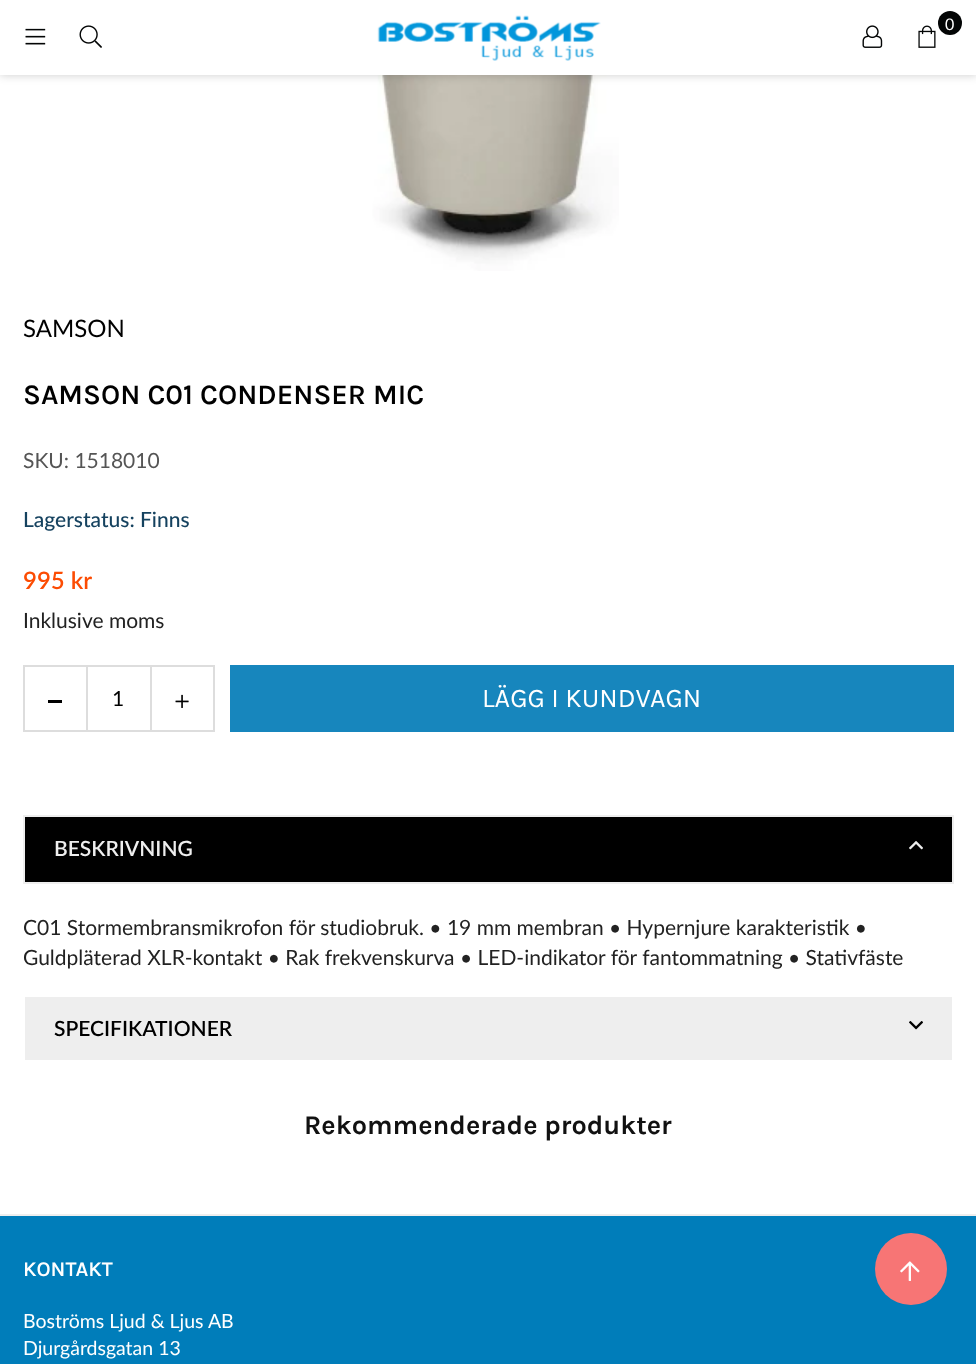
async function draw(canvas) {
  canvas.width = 976
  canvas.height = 1364
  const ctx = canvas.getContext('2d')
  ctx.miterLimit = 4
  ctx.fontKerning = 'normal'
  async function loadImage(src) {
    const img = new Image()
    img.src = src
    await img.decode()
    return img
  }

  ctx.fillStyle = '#fff'
  ctx.fillRect(0, 0, 976, 1364)
  ctx.drawImage(await loadImage('image5.png'), 372, 75, 247, 196)
  ctx.fillStyle = '#00000033'
  ctx.filter = 'blur(5px)'
  ctx.beginPath()
  ctx.rect(0, 0, 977, 75)
  ctx.fill()
  ctx.filter = 'none'
  ctx.fillStyle = '#fff'
  ctx.fillRect(0, 0, 976, 75)
  ctx.drawImage(await loadImage('image0.png'), 25, 28, 21, 17)
  ctx.drawImage(await loadImage('image1.png'), 79, 25, 23, 23)
  ctx.drawImage(await loadImage('image2.png'), 377, 15, 224, 46)
  ctx.drawImage(await loadImage('image3.png'), 862, 25, 21, 23)
  ctx.drawImage(await loadImage('image4.png'), 918, 25, 18, 23)
  ctx.fillStyle = '#030505'
  ctx.beginPath()
  ctx.arc(950, 23, 12, 0, 2 * Math.PI)
  ctx.fill()
  ctx.font = '16px Lato'
  ctx.fillStyle = '#fff'
  ctx.fillText('0', 945, 30)
  ctx.font = '24px Lato'
  ctx.fillStyle = '#000'
  ctx.fillText('SAMSON', 23, 337)
  ctx.font = '600 28.5px Karla'
  ctx.fillText('SAMSON C01 CONDENSER MIC', 23, 404)
  ctx.font = '21px Lato'
  ctx.fillStyle = '#555'
  ctx.fillText('SKU: 1518010', 23, 468)
  ctx.font = '500 21px Lato'
  ctx.fillStyle = '#15425f'
  ctx.fillText('Lagerstatus: Finns', 23, 527)
  ctx.font = '600 24px Lato'
  ctx.fillStyle = '#fc4c03'
  ctx.fillText('995 kr', 23, 589)
  ctx.font = '21px Lato'
  ctx.fillStyle = '#222'
  ctx.fillText('Inklusive moms', 23, 628)
  ctx.strokeStyle = '#ddd'
  ctx.lineWidth = 2
  ctx.strokeRect(24, 666, 190, 65)
  ctx.fillStyle = '#ddd'
  ctx.fillRect(86, 666, 2, 65)
  ctx.fillStyle = '#000'
  ctx.fillRect(48, 700, 14, 3)
  ctx.fillText('1', 112, 706)
  ctx.fillStyle = '#ddd'
  ctx.fillRect(150, 666, 2, 65)
  ctx.drawImage(await loadImage('image6.png'), 175, 694, 14, 14)
  ctx.fillStyle = '#1786bd'
  ctx.fillRect(230, 665, 724, 67)
  ctx.font = '27px Karla'
  ctx.fillStyle = '#fff'
  ctx.fillText('LÄGG I KUNDVAGN', 482, 707)
  ctx.fillStyle = '#000'
  ctx.beginPath()
  ctx.rect(24, 816, 929, 67)
  ctx.fill()
  ctx.strokeStyle = '#eee'
  ctx.stroke()
  ctx.font = '600 21px Lato'
  ctx.fillStyle = '#eee'
  ctx.fillText('BESKRIVNING', 54, 856)
  ctx.drawImage(await loadImage('image7.png'), 909, 841, 14, 9)
  ctx.font = '21px Lato'
  ctx.fillStyle = '#222'
  ctx.fillText('C01 Stormembransmikrofon för studiobruk. • 19 mm membran • Hypernjure karakteristik •', 23, 935)
  ctx.fillText('Guldpläterad XLR-kontakt • Rak frekvenskurva • LED-indikator för fantommatning • Stativfäste', 23, 965)
  ctx.fillStyle = '#eee'
  ctx.fillRect(25, 997, 927, 63)
  ctx.font = '600 21px Lato'
  ctx.fillStyle = '#000'
  ctx.fillText('SPECIFIKATIONER', 54, 1036)
  ctx.drawImage(await loadImage('image8.png'), 909, 1021, 14, 9)
  ctx.font = 'bold 27px Karla'
  ctx.fillStyle = '#111'
  ctx.fillText('Rekommenderade produkter', 304, 1134)
  ctx.fillStyle = '#007dba'
  ctx.fillRect(0, 1216, 976, 148)
  ctx.fillStyle = '#eee'
  ctx.fillRect(0, 1214, 976, 2)
  ctx.font = '600 21px Karla'
  ctx.fillStyle = '#fff'
  ctx.fillText('KONTAKT', 23, 1276)
  ctx.font = '19.5px Lato'
  ctx.fillText('Boströms Ljud & Ljus AB', 23, 1328)
  ctx.fillText('Djurgårdsgatan 13', 23, 1355)
  ctx.fillStyle = '#f77575'
  ctx.beginPath()
  ctx.arc(911, 1269, 36, 0, 2 * Math.PI)
  ctx.fill()
  ctx.drawImage(await loadImage('image9.png'), 900, 1261, 20, 20)
}

draw(document.querySelector('canvas'))
